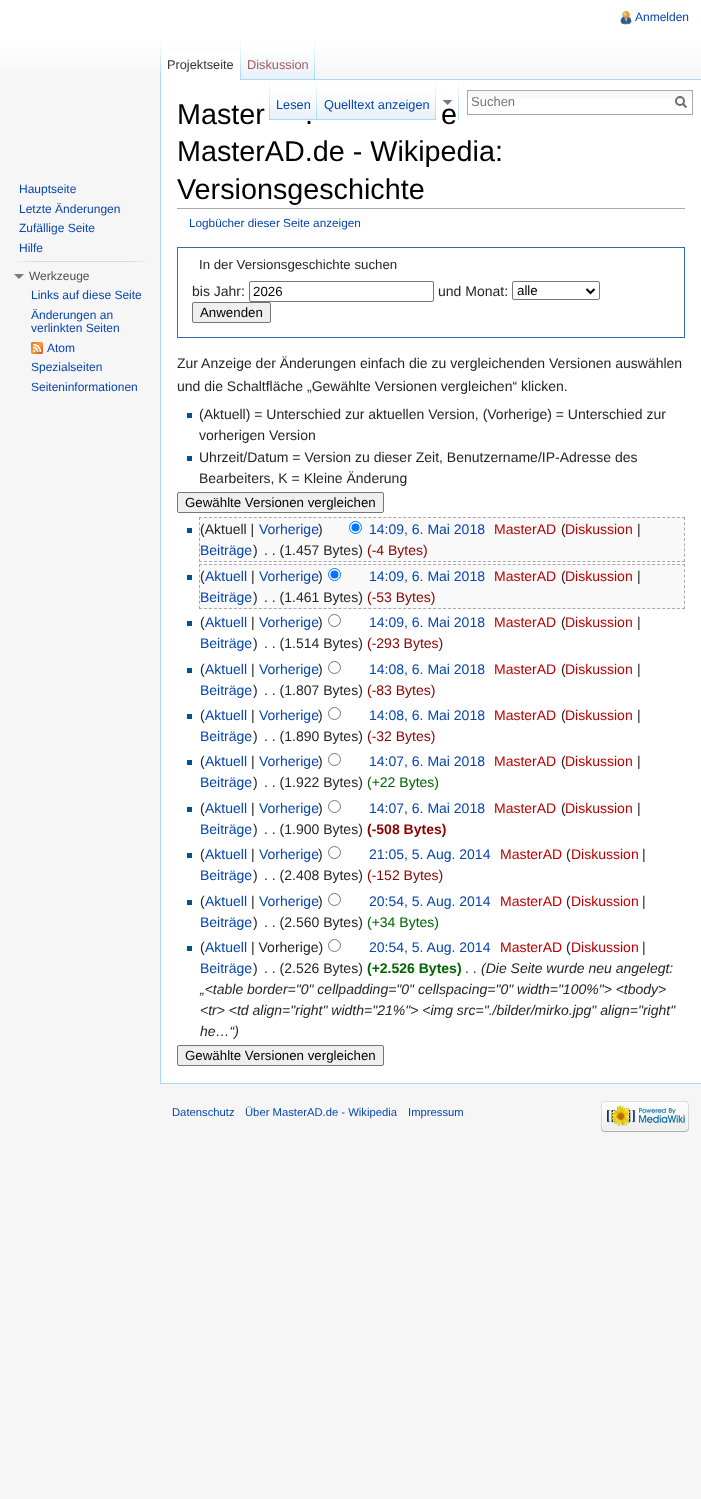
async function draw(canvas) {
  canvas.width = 701
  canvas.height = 1499
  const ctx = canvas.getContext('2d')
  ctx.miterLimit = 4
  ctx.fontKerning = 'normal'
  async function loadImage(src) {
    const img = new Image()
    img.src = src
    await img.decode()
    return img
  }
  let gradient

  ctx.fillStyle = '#f6f6f6'
  ctx.fillRect(0, 0, 701, 1499)
  gradient = ctx.createLinearGradient(351, 0, 351, 80)
  gradient.addColorStop(0.5, '#fff')
  gradient.addColorStop(1, '#f6f6f6')
  ctx.fillStyle = gradient
  ctx.fillRect(0, 0, 701, 69)
  ctx.drawImage(await loadImage('image0.png'), 620, 11, 12, 14)
  ctx.font = '12px Liberation Sans'
  ctx.fillStyle = '#0645ad'
  ctx.fillText('Anmelden', 635, 21)
  ctx.drawImage(await loadImage('image1.png'), 160, 40, 1, 39)
  ctx.fillStyle = '#fff'
  ctx.fillRect(161, 51, 79, 29)
  ctx.drawImage(await loadImage('image2.png'), 240, 40, 1, 40)
  ctx.font = '12.75px Liberation Sans'
  ctx.fillStyle = '#333'
  ctx.fillText('Projektseite', 167, 69)
  ctx.drawImage(await loadImage('image3.png'), 241, 40, 74, 40)
  ctx.drawImage(await loadImage('image4.png'), 314, 40, 1, 39)
  ctx.fillStyle = '#a55858'
  ctx.fillText('Diskussion', 247, 69)
  ctx.fillStyle = '#fff'
  ctx.fillRect(161, 80, 540, 1003)
  ctx.drawImage(await loadImage('image5.png'), 269, 80, 1, 40)
  ctx.drawImage(await loadImage('image6.png'), 270, 80, 47, 40)
  ctx.drawImage(await loadImage('image4.png'), 316, 80, 1, 39)
  ctx.fillStyle = '#0645ad'
  ctx.fillText('Lesen', 276, 109)
  ctx.drawImage(await loadImage('image7.png'), 317, 80, 119, 40)
  ctx.drawImage(await loadImage('image4.png'), 435, 80, 1, 39)
  ctx.fillText('Quelltext anzeigen', 324, 109)
  ctx.fillStyle = '#797979'
  ctx.beginPath()
  ctx.moveTo(452.5, 100)
  ctx.lineTo(447.5, 105)
  ctx.lineTo(442.5, 100)
  ctx.closePath()
  ctx.fill()
  ctx.drawImage(await loadImage('image2.png'), 458, 80, 1, 40)
  ctx.drawImage(await loadImage('image8.png'), 468, 91, 224, 8)
  ctx.strokeStyle = '#aaa'
  ctx.strokeRect(467.5, 90.5, 225, 24)
  ctx.font = '13px Liberation Sans'
  ctx.fillStyle = '#757575'
  ctx.fillText('Suchen', 471, 106)
  ctx.beginPath()
  ctx.moveTo(686.5, 107.5)
  ctx.lineTo(682.5, 103.5)
  ctx.strokeStyle = '#6c6c6c'
  ctx.lineWidth = 2
  ctx.stroke()
  ctx.beginPath()
  ctx.arc(680, 101, 4, 0, 2 * Math.PI)
  ctx.stroke()
  ctx.font = '12px Liberation Sans'
  ctx.fillStyle = '#0645ad'
  ctx.fillText('Hauptseite', 19, 193)
  ctx.fillText('Letzte Änderungen', 19, 213)
  ctx.fillText('Zufällige Seite', 19, 232)
  ctx.fillText('Hilfe', 19, 252)
  ctx.drawImage(await loadImage('image9.png'), 14, 261, 135, 1)
  ctx.fillStyle = '#797979'
  ctx.beginPath()
  ctx.moveTo(24, 274)
  ctx.lineTo(19, 279)
  ctx.lineTo(14, 274)
  ctx.closePath()
  ctx.fill()
  ctx.fillStyle = '#4d4d4d'
  ctx.fillText('Werkzeuge', 29, 280)
  ctx.fillStyle = '#0645ad'
  ctx.fillText('Links auf diese Seite', 31, 299)
  ctx.fillText('Änderungen an', 31, 319)
  ctx.fillText('verlinkten Seiten', 31, 332)
  ctx.drawImage(await loadImage('image10.png'), 31, 342, 12, 12)
  ctx.fillText('Atom', 47, 352)
  ctx.fillText('Spezialseiten', 31, 371)
  ctx.fillText('Seiteninformationen', 31, 391)
  ctx.fillStyle = '#a7d7f9'
  ctx.fillRect(315, 79, 386, 1)
  ctx.fillRect(160, 1083, 541, 1)
  ctx.fillRect(160, 79, 1, 1005)
  ctx.fillStyle = '#aaa'
  ctx.fillRect(177, 208, 508, 1)
  ctx.font = '28.75px Liberation Sans'
  ctx.fillStyle = '#000'
  ctx.fillText('Master', 177, 124)
  ctx.fillText('.', 305, 124)
  ctx.fillText('e', 441, 124)
  ctx.fillText('MasterAD.de - Wikipedia:', 177, 161)
  ctx.fillText('Versionsgeschichte', 177, 199)
  ctx.font = '11.75px Liberation Sans'
  ctx.fillStyle = '#0645ad'
  ctx.fillText('Logbücher dieser Seite anzeigen', 189, 227)
  ctx.strokeStyle = '#2f6fab'
  ctx.lineWidth = 1
  ctx.strokeRect(177.5, 247.5, 507, 90)
  ctx.font = '13.25px Liberation Sans'
  ctx.fillStyle = '#252525'
  ctx.fillText('In der Versionsgeschichte suchen', 199, 269)
  ctx.font = '14px Liberation Sans'
  ctx.fillText('bis Jahr:', 192, 296)
  ctx.beginPath()
  ctx.roundRect(249.5, 281.5, 184, 20, 1.5)
  ctx.strokeStyle = '#767676'
  ctx.stroke()
  ctx.font = '13.3px Liberation Sans'
  ctx.fillStyle = '#000'
  ctx.fillText('2026', 253, 296)
  ctx.font = '14px Liberation Sans'
  ctx.fillStyle = '#252525'
  ctx.fillText('und Monat:', 438, 296)
  ctx.beginPath()
  ctx.roundRect(512.5, 281.5, 87, 18, 1.5)
  ctx.stroke()
  ctx.beginPath()
  ctx.moveTo(586.5, 289)
  ctx.lineTo(590.5, 293)
  ctx.lineTo(594.5, 289)
  ctx.strokeStyle = '#000'
  ctx.lineWidth = 2
  ctx.stroke()
  ctx.font = '13.3px Liberation Sans'
  ctx.fillStyle = '#000'
  ctx.fillText('alle', 517, 295)
  ctx.fillStyle = '#efefef'
  ctx.beginPath()
  ctx.roundRect(192.5, 302.5, 78, 20, 1.5)
  ctx.fill()
  ctx.strokeStyle = '#767676'
  ctx.lineWidth = 1
  ctx.stroke()
  ctx.fillStyle = '#000'
  ctx.fillText('Anwenden', 200, 317)
  ctx.font = '14px Liberation Sans'
  ctx.fillStyle = '#252525'
  ctx.fillText('Zur Anzeige der Änderungen einfach die zu vergleichenden Versionen auswählen', 177, 368)
  ctx.fillText('und die Schaltfläche „Gewählte Versionen vergleichen“ klicken.', 177, 391)
  ctx.fillStyle = '#00528c'
  ctx.fillRect(187, 413, 5, 5)
  ctx.fillStyle = '#252525'
  ctx.fillText('(Aktuell) = Unterschied zur aktuellen Version, (Vorherige) = Unterschied zur', 199, 419)
  ctx.fillText('vorherigen Version', 199, 440)
  ctx.fillStyle = '#00528c'
  ctx.fillRect(187, 456, 5, 5)
  ctx.fillStyle = '#252525'
  ctx.fillText('Uhrzeit/Datum = Version zu dieser Zeit, Benutzername/IP-Adresse des', 199, 462)
  ctx.fillText('Bearbeiters, K = Kleine Änderung', 199, 483)
  ctx.fillStyle = '#efefef'
  ctx.beginPath()
  ctx.roundRect(177.5, 492.5, 206, 20, 1.5)
  ctx.fill()
  ctx.stroke()
  ctx.font = '13.3px Liberation Sans'
  ctx.fillStyle = '#000'
  ctx.fillText('Gewählte Versionen vergleichen', 185, 507)
  ctx.fillStyle = '#f9f9f9'
  ctx.fillRect(199, 517, 486, 45)
  ctx.beginPath()
  ctx.moveTo(199, 517.5)
  ctx.lineTo(685, 517.5)
  ctx.strokeStyle = '#aaa'
  ctx.setLineDash([3, 1.98])
  ctx.stroke()
  ctx.beginPath()
  ctx.moveTo(684.5, 517)
  ctx.lineTo(684.5, 562)
  ctx.setLineDash([3, 2.25])
  ctx.stroke()
  ctx.beginPath()
  ctx.moveTo(199, 561.5)
  ctx.lineTo(685, 561.5)
  ctx.setLineDash([3, 1.98])
  ctx.stroke()
  ctx.beginPath()
  ctx.moveTo(199.5, 517)
  ctx.lineTo(199.5, 562)
  ctx.setLineDash([3, 2.25])
  ctx.stroke()
  ctx.fillStyle = '#00528c'
  ctx.fillRect(187, 528, 5, 5)
  ctx.font = '14px Liberation Sans'
  ctx.fillStyle = '#252525'
  ctx.fillText('(Aktuell |', 200, 534)
  ctx.fillStyle = '#0645ad'
  ctx.fillText('Vorherige', 259, 534)
  ctx.fillStyle = '#252525'
  ctx.fillText(')', 318, 534)
  ctx.fillStyle = '#fff'
  ctx.beginPath()
  ctx.arc(355.5, 527.5, 6, 0, 2 * Math.PI)
  ctx.fill()
  ctx.strokeStyle = '#0075ff'
  ctx.setLineDash([])
  ctx.stroke()
  ctx.fillStyle = '#0075ff'
  ctx.beginPath()
  ctx.arc(355.5, 527.5, 4, 0, 2 * Math.PI)
  ctx.fill()
  ctx.fillStyle = '#0645ad'
  ctx.fillText('14:09, 6. Mai 2018', 369, 534)
  ctx.fillStyle = '#ba0000'
  ctx.fillText('MasterAD', 494, 534)
  ctx.fillStyle = '#252525'
  ctx.fillText('(', 561, 534)
  ctx.fillStyle = '#ba0000'
  ctx.fillText('Diskussion', 565, 534)
  ctx.fillStyle = '#252525'
  ctx.fillText('|', 637, 534)
  ctx.fillStyle = '#0645ad'
  ctx.fillText('Beiträge', 200, 555)
  ctx.fillStyle = '#252525'
  ctx.fillText(')', 253, 555)
  ctx.fillText('. . (1.457 Bytes)', 264, 555)
  ctx.fillStyle = '#8b0000'
  ctx.fillText('(-4 Bytes)', 367, 555)
  ctx.fillStyle = '#f9f9f9'
  ctx.fillRect(199, 564, 486, 45)
  ctx.beginPath()
  ctx.moveTo(199, 564.5)
  ctx.lineTo(685, 564.5)
  ctx.strokeStyle = '#aaa'
  ctx.setLineDash([3, 1.98])
  ctx.stroke()
  ctx.beginPath()
  ctx.moveTo(684.5, 564)
  ctx.lineTo(684.5, 609)
  ctx.setLineDash([3, 2.25])
  ctx.stroke()
  ctx.beginPath()
  ctx.moveTo(199, 608.5)
  ctx.lineTo(685, 608.5)
  ctx.setLineDash([3, 1.98])
  ctx.stroke()
  ctx.beginPath()
  ctx.moveTo(199.5, 564)
  ctx.lineTo(199.5, 609)
  ctx.setLineDash([3, 2.25])
  ctx.stroke()
  ctx.fillStyle = '#00528c'
  ctx.fillRect(187, 575, 5, 5)
  ctx.fillStyle = '#252525'
  ctx.fillText('(', 200, 581)
  ctx.fillStyle = '#0645ad'
  ctx.fillText('Aktuell', 205, 581)
  ctx.fillStyle = '#252525'
  ctx.fillText('|', 251, 581)
  ctx.fillStyle = '#0645ad'
  ctx.fillText('Vorherige', 259, 581)
  ctx.fillStyle = '#252525'
  ctx.fillText(')', 318, 581)
  ctx.fillStyle = '#fff'
  ctx.beginPath()
  ctx.arc(334.5, 574.5, 6, 0, 2 * Math.PI)
  ctx.fill()
  ctx.strokeStyle = '#0075ff'
  ctx.setLineDash([])
  ctx.stroke()
  ctx.fillStyle = '#0075ff'
  ctx.beginPath()
  ctx.arc(334.5, 574.5, 4, 0, 2 * Math.PI)
  ctx.fill()
  ctx.fillStyle = '#0645ad'
  ctx.fillText('14:09, 6. Mai 2018', 369, 581)
  ctx.fillStyle = '#ba0000'
  ctx.fillText('MasterAD', 494, 581)
  ctx.fillStyle = '#252525'
  ctx.fillText('(', 561, 581)
  ctx.fillStyle = '#ba0000'
  ctx.fillText('Diskussion', 565, 581)
  ctx.fillStyle = '#252525'
  ctx.fillText('|', 637, 581)
  ctx.fillStyle = '#0645ad'
  ctx.fillText('Beiträge', 200, 602)
  ctx.fillStyle = '#252525'
  ctx.fillText(')', 253, 602)
  ctx.fillText('. . (1.461 Bytes)', 264, 602)
  ctx.fillStyle = '#8b0000'
  ctx.fillText('(-53 Bytes)', 367, 602)
  ctx.fillStyle = '#00528c'
  ctx.fillRect(187, 621, 5, 5)
  ctx.fillStyle = '#252525'
  ctx.fillText('(', 200, 627)
  ctx.fillStyle = '#0645ad'
  ctx.fillText('Aktuell', 205, 627)
  ctx.fillStyle = '#252525'
  ctx.fillText('|', 251, 627)
  ctx.fillStyle = '#0645ad'
  ctx.fillText('Vorherige', 259, 627)
  ctx.fillStyle = '#252525'
  ctx.fillText(')', 318, 627)
  ctx.beginPath()
  ctx.arc(334.5, 620.5, 6, 0, 2 * Math.PI)
  ctx.strokeStyle = '#767676'
  ctx.stroke()
  ctx.fillStyle = '#0645ad'
  ctx.fillText('14:09, 6. Mai 2018', 369, 627)
  ctx.fillStyle = '#ba0000'
  ctx.fillText('MasterAD', 494, 627)
  ctx.fillStyle = '#252525'
  ctx.fillText('(', 561, 627)
  ctx.fillStyle = '#ba0000'
  ctx.fillText('Diskussion', 565, 627)
  ctx.fillStyle = '#252525'
  ctx.fillText('|', 637, 627)
  ctx.fillStyle = '#0645ad'
  ctx.fillText('Beiträge', 200, 648)
  ctx.fillStyle = '#252525'
  ctx.fillText(')', 253, 648)
  ctx.fillText('. . (1.514 Bytes)', 264, 648)
  ctx.fillStyle = '#8b0000'
  ctx.fillText('(-293 Bytes)', 367, 648)
  ctx.fillStyle = '#00528c'
  ctx.fillRect(187, 668, 5, 5)
  ctx.fillStyle = '#252525'
  ctx.fillText('(', 200, 674)
  ctx.fillStyle = '#0645ad'
  ctx.fillText('Aktuell', 205, 674)
  ctx.fillStyle = '#252525'
  ctx.fillText('|', 251, 674)
  ctx.fillStyle = '#0645ad'
  ctx.fillText('Vorherige', 259, 674)
  ctx.fillStyle = '#252525'
  ctx.fillText(')', 318, 674)
  ctx.beginPath()
  ctx.arc(334.5, 667.5, 6, 0, 2 * Math.PI)
  ctx.stroke()
  ctx.fillStyle = '#0645ad'
  ctx.fillText('14:08, 6. Mai 2018', 369, 674)
  ctx.fillStyle = '#ba0000'
  ctx.fillText('MasterAD', 494, 674)
  ctx.fillStyle = '#252525'
  ctx.fillText('(', 561, 674)
  ctx.fillStyle = '#ba0000'
  ctx.fillText('Diskussion', 565, 674)
  ctx.fillStyle = '#252525'
  ctx.fillText('|', 637, 674)
  ctx.fillStyle = '#0645ad'
  ctx.fillText('Beiträge', 200, 695)
  ctx.fillStyle = '#252525'
  ctx.fillText(')', 253, 695)
  ctx.fillText('. . (1.807 Bytes)', 264, 695)
  ctx.fillStyle = '#8b0000'
  ctx.fillText('(-83 Bytes)', 367, 695)
  ctx.fillStyle = '#00528c'
  ctx.fillRect(187, 714, 5, 5)
  ctx.fillStyle = '#252525'
  ctx.fillText('(', 200, 720)
  ctx.fillStyle = '#0645ad'
  ctx.fillText('Aktuell', 205, 720)
  ctx.fillStyle = '#252525'
  ctx.fillText('|', 251, 720)
  ctx.fillStyle = '#0645ad'
  ctx.fillText('Vorherige', 259, 720)
  ctx.fillStyle = '#252525'
  ctx.fillText(')', 318, 720)
  ctx.beginPath()
  ctx.arc(334.5, 713.5, 6, 0, 2 * Math.PI)
  ctx.stroke()
  ctx.fillStyle = '#0645ad'
  ctx.fillText('14:08, 6. Mai 2018', 369, 720)
  ctx.fillStyle = '#ba0000'
  ctx.fillText('MasterAD', 494, 720)
  ctx.fillStyle = '#252525'
  ctx.fillText('(', 561, 720)
  ctx.fillStyle = '#ba0000'
  ctx.fillText('Diskussion', 565, 720)
  ctx.fillStyle = '#252525'
  ctx.fillText('|', 637, 720)
  ctx.fillStyle = '#0645ad'
  ctx.fillText('Beiträge', 200, 741)
  ctx.fillStyle = '#252525'
  ctx.fillText(')', 253, 741)
  ctx.fillText('. . (1.890 Bytes)', 264, 741)
  ctx.fillStyle = '#8b0000'
  ctx.fillText('(-32 Bytes)', 367, 741)
  ctx.fillStyle = '#00528c'
  ctx.fillRect(187, 760, 5, 5)
  ctx.fillStyle = '#252525'
  ctx.fillText('(', 200, 766)
  ctx.fillStyle = '#0645ad'
  ctx.fillText('Aktuell', 205, 766)
  ctx.fillStyle = '#252525'
  ctx.fillText('|', 251, 766)
  ctx.fillStyle = '#0645ad'
  ctx.fillText('Vorherige', 259, 766)
  ctx.fillStyle = '#252525'
  ctx.fillText(')', 318, 766)
  ctx.beginPath()
  ctx.arc(334.5, 759.5, 6, 0, 2 * Math.PI)
  ctx.stroke()
  ctx.fillStyle = '#0645ad'
  ctx.fillText('14:07, 6. Mai 2018', 369, 766)
  ctx.fillStyle = '#ba0000'
  ctx.fillText('MasterAD', 494, 766)
  ctx.fillStyle = '#252525'
  ctx.fillText('(', 561, 766)
  ctx.fillStyle = '#ba0000'
  ctx.fillText('Diskussion', 565, 766)
  ctx.fillStyle = '#252525'
  ctx.fillText('|', 637, 766)
  ctx.fillStyle = '#0645ad'
  ctx.fillText('Beiträge', 200, 787)
  ctx.fillStyle = '#252525'
  ctx.fillText(')', 253, 787)
  ctx.fillText('. . (1.922 Bytes)', 264, 787)
  ctx.fillStyle = '#006400'
  ctx.fillText('(+22 Bytes)', 367, 787)
  ctx.fillStyle = '#00528c'
  ctx.fillRect(187, 807, 5, 5)
  ctx.fillStyle = '#252525'
  ctx.fillText('(', 200, 813)
  ctx.fillStyle = '#0645ad'
  ctx.fillText('Aktuell', 205, 813)
  ctx.fillStyle = '#252525'
  ctx.fillText('|', 251, 813)
  ctx.fillStyle = '#0645ad'
  ctx.fillText('Vorherige', 259, 813)
  ctx.fillStyle = '#252525'
  ctx.fillText(')', 318, 813)
  ctx.beginPath()
  ctx.arc(334.5, 806.5, 6, 0, 2 * Math.PI)
  ctx.stroke()
  ctx.fillStyle = '#0645ad'
  ctx.fillText('14:07, 6. Mai 2018', 369, 813)
  ctx.fillStyle = '#ba0000'
  ctx.fillText('MasterAD', 494, 813)
  ctx.fillStyle = '#252525'
  ctx.fillText('(', 561, 813)
  ctx.fillStyle = '#ba0000'
  ctx.fillText('Diskussion', 565, 813)
  ctx.fillStyle = '#252525'
  ctx.fillText('|', 637, 813)
  ctx.fillStyle = '#0645ad'
  ctx.fillText('Beiträge', 200, 834)
  ctx.fillStyle = '#252525'
  ctx.fillText(')', 253, 834)
  ctx.fillText('. . (1.900 Bytes)', 264, 834)
  ctx.font = 'bold 14px Liberation Sans'
  ctx.fillStyle = '#8b0000'
  ctx.fillText('(-508 Bytes)', 367, 834)
  ctx.fillStyle = '#00528c'
  ctx.fillRect(187, 853, 5, 5)
  ctx.font = '14px Liberation Sans'
  ctx.fillStyle = '#252525'
  ctx.fillText('(', 200, 859)
  ctx.fillStyle = '#0645ad'
  ctx.fillText('Aktuell', 205, 859)
  ctx.fillStyle = '#252525'
  ctx.fillText('|', 251, 859)
  ctx.fillStyle = '#0645ad'
  ctx.fillText('Vorherige', 259, 859)
  ctx.fillStyle = '#252525'
  ctx.fillText(')', 318, 859)
  ctx.beginPath()
  ctx.arc(334.5, 852.5, 6, 0, 2 * Math.PI)
  ctx.stroke()
  ctx.fillStyle = '#0645ad'
  ctx.fillText('21:05, 5. Aug. 2014', 369, 859)
  ctx.fillStyle = '#ba0000'
  ctx.fillText('MasterAD', 500, 859)
  ctx.fillStyle = '#252525'
  ctx.fillText('(', 566, 859)
  ctx.fillStyle = '#ba0000'
  ctx.fillText('Diskussion', 571, 859)
  ctx.fillStyle = '#252525'
  ctx.fillText('|', 642, 859)
  ctx.fillStyle = '#0645ad'
  ctx.fillText('Beiträge', 200, 880)
  ctx.fillStyle = '#252525'
  ctx.fillText(')', 253, 880)
  ctx.fillText('. . (2.408 Bytes)', 264, 880)
  ctx.fillStyle = '#8b0000'
  ctx.fillText('(-152 Bytes)', 367, 880)
  ctx.fillStyle = '#00528c'
  ctx.fillRect(187, 900, 5, 5)
  ctx.fillStyle = '#252525'
  ctx.fillText('(', 200, 906)
  ctx.fillStyle = '#0645ad'
  ctx.fillText('Aktuell', 205, 906)
  ctx.fillStyle = '#252525'
  ctx.fillText('|', 251, 906)
  ctx.fillStyle = '#0645ad'
  ctx.fillText('Vorherige', 259, 906)
  ctx.fillStyle = '#252525'
  ctx.fillText(')', 318, 906)
  ctx.beginPath()
  ctx.arc(334.5, 899.5, 6, 0, 2 * Math.PI)
  ctx.stroke()
  ctx.fillStyle = '#0645ad'
  ctx.fillText('20:54, 5. Aug. 2014', 369, 906)
  ctx.fillStyle = '#ba0000'
  ctx.fillText('MasterAD', 500, 906)
  ctx.fillStyle = '#252525'
  ctx.fillText('(', 566, 906)
  ctx.fillStyle = '#ba0000'
  ctx.fillText('Diskussion', 571, 906)
  ctx.fillStyle = '#252525'
  ctx.fillText('|', 642, 906)
  ctx.fillStyle = '#0645ad'
  ctx.fillText('Beiträge', 200, 927)
  ctx.fillStyle = '#252525'
  ctx.fillText(')', 253, 927)
  ctx.fillText('. . (2.560 Bytes)', 264, 927)
  ctx.fillStyle = '#006400'
  ctx.fillText('(+34 Bytes)', 367, 927)
  ctx.fillStyle = '#00528c'
  ctx.fillRect(187, 946, 5, 5)
  ctx.fillStyle = '#252525'
  ctx.fillText('(', 200, 952)
  ctx.fillStyle = '#0645ad'
  ctx.fillText('Aktuell', 205, 952)
  ctx.fillStyle = '#252525'
  ctx.fillText('| Vorherige)', 251, 952)
  ctx.beginPath()
  ctx.arc(334.5, 945.5, 6, 0, 2 * Math.PI)
  ctx.stroke()
  ctx.fillStyle = '#0645ad'
  ctx.fillText('20:54, 5. Aug. 2014', 369, 952)
  ctx.fillStyle = '#ba0000'
  ctx.fillText('MasterAD', 500, 952)
  ctx.fillStyle = '#252525'
  ctx.fillText('(', 566, 952)
  ctx.fillStyle = '#ba0000'
  ctx.fillText('Diskussion', 571, 952)
  ctx.fillStyle = '#252525'
  ctx.fillText('|', 642, 952)
  ctx.fillStyle = '#0645ad'
  ctx.fillText('Beiträge', 200, 973)
  ctx.fillStyle = '#252525'
  ctx.fillText(')', 253, 973)
  ctx.fillText('. . (2.526 Bytes)', 264, 973)
  ctx.font = 'bold 14px Liberation Sans'
  ctx.fillStyle = '#006400'
  ctx.fillText('(+2.526 Bytes)', 367, 973)
  ctx.font = '14px Liberation Sans'
  ctx.fillStyle = '#252525'
  ctx.fillText('. .', 465, 973)
  ctx.font = 'italic 14px Liberation Sans'
  ctx.fillText('(Die Seite wurde neu angelegt:', 481, 973)
  ctx.fillText('„<table border="0" cellpadding="0" cellspacing="0" width="100%"> <tbody>', 200, 994)
  ctx.fillText('<tr> <td align="right" width="21%"> <img src="./bilder/mirko.jpg" align="right"', 200, 1015)
  ctx.fillText('he…“)', 200, 1036)
  ctx.fillStyle = '#efefef'
  ctx.beginPath()
  ctx.roundRect(177.5, 1045.5, 206, 20, 1.5)
  ctx.fill()
  ctx.stroke()
  ctx.font = '13.3px Liberation Sans'
  ctx.fillStyle = '#000'
  ctx.fillText('Gewählte Versionen vergleichen', 185, 1060)
  ctx.font = '11.25px Liberation Sans'
  ctx.fillStyle = '#0645ad'
  ctx.fillText('Datenschutz', 172, 1116)
  ctx.fillText('Über MasterAD.de - Wikipedia', 245, 1116)
  ctx.fillText('Impressum', 408, 1116)
  ctx.drawImage(await loadImage('image11.png'), 601, 1101, 88, 31)
}

draw(document.querySelector('canvas'))
